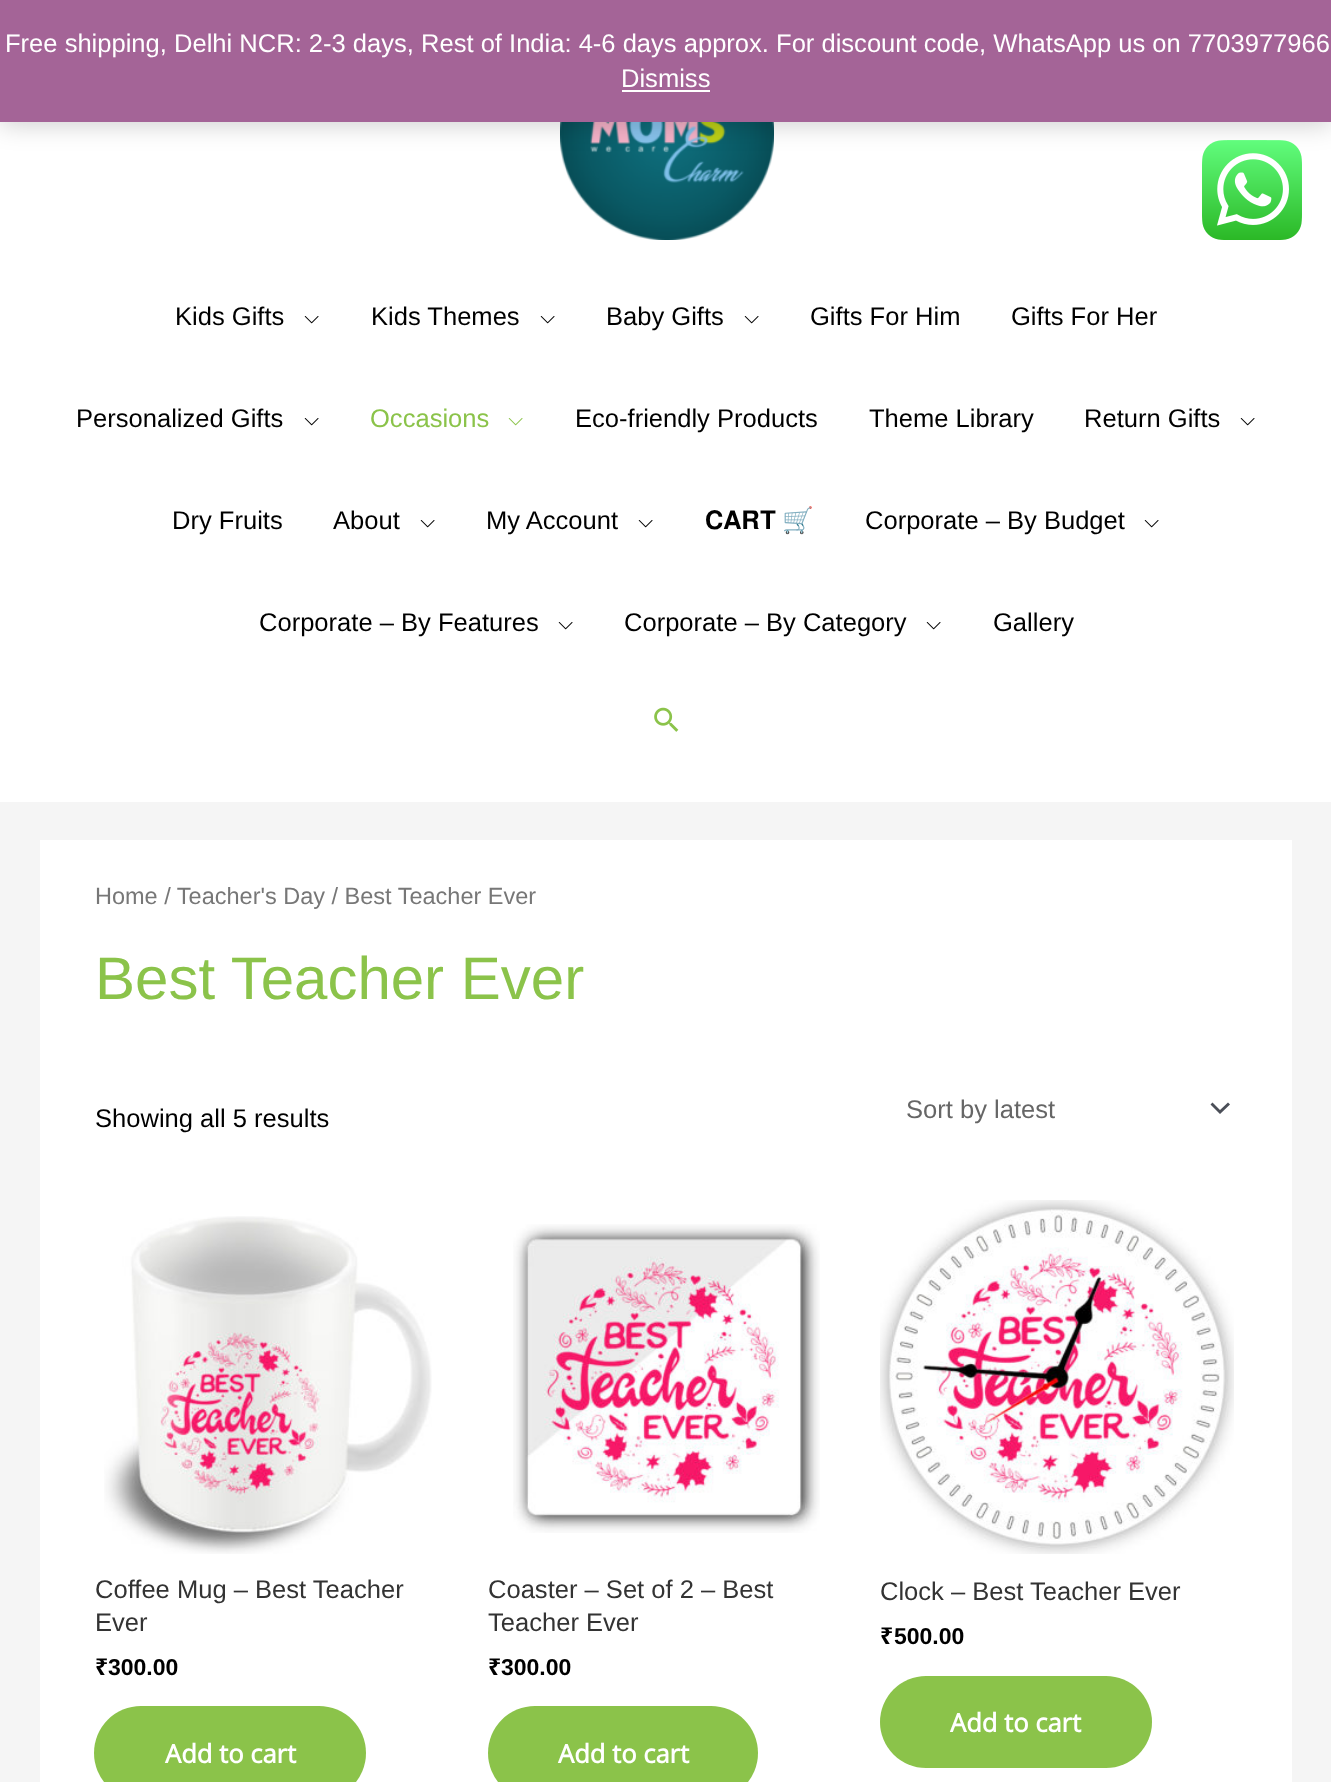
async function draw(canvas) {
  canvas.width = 1331
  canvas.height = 1782
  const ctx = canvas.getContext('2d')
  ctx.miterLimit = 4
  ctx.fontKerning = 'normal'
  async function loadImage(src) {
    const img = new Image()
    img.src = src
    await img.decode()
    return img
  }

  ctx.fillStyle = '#f5f5f5'
  ctx.fillRect(0, 0, 1331, 1782)
  ctx.fillStyle = '#fff'
  ctx.fillRect(0, 122, 1331, 680)
  ctx.drawImage(await loadImage('image1.png'), 560, 122, 214, 118)
  ctx.fillStyle = '#00000033'
  ctx.filter = 'blur(13px)'
  ctx.beginPath()
  ctx.rect(0, 2, 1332, 122)
  ctx.fill()
  ctx.filter = 'none'
  ctx.fillStyle = '#a46497'
  ctx.fillRect(0, 0, 1331, 122)
  ctx.font = '25.55px Liberation Sans'
  ctx.fillStyle = '#fff'
  ctx.fillText('Free shipping, Delhi NCR: 2-3 days, Rest of India: 4-6 days approx. For discount code, WhatsApp us on 7703977966', 5, 52)
  ctx.fillText('Dismiss', 621, 87)
  ctx.fillRect(622, 90, 88, 2)
  ctx.drawImage(await loadImage('image0.png'), 1202, 140, 100, 100)
  ctx.fillStyle = '#000'
  ctx.fillText('Kids Gifts', 175, 325)
  ctx.drawImage(await loadImage('image2.png'), 304, 316, 15, 8)
  ctx.fillText('Kids Themes', 371, 325)
  ctx.drawImage(await loadImage('image2.png'), 540, 316, 15, 8)
  ctx.fillText('Baby Gifts', 606, 325)
  ctx.drawImage(await loadImage('image2.png'), 744, 316, 15, 8)
  ctx.fillText('Gifts For Him', 810, 325)
  ctx.fillText('Gifts For Her', 1011, 325)
  ctx.fillText('Personalized Gifts', 76, 427)
  ctx.drawImage(await loadImage('image2.png'), 304, 418, 15, 8)
  ctx.fillStyle = '#8bc34a'
  ctx.fillText('Occasions', 370, 427)
  ctx.drawImage(await loadImage('image3.png'), 508, 418, 15, 8)
  ctx.fillStyle = '#000'
  ctx.fillText('Eco-friendly Products', 575, 427)
  ctx.fillText('Theme Library', 869, 427)
  ctx.fillText('Return Gifts', 1084, 427)
  ctx.drawImage(await loadImage('image2.png'), 1240, 418, 15, 8)
  ctx.fillText('Dry Fruits', 172, 529)
  ctx.fillText('About', 333, 529)
  ctx.drawImage(await loadImage('image2.png'), 420, 520, 15, 8)
  ctx.fillText('My Account', 486, 529)
  ctx.drawImage(await loadImage('image2.png'), 638, 520, 15, 8)
  ctx.font = '25.55px FreeSans'
  ctx.fillText('𝐂𝐀𝐑𝐓', 705, 529)
  ctx.font = '25.55px Noto Color Emoji'
  ctx.fillText('🛒', 782, 529)
  ctx.font = '25.55px Liberation Sans'
  ctx.fillText('Corporate – By Budget', 865, 529)
  ctx.drawImage(await loadImage('image2.png'), 1144, 520, 15, 8)
  ctx.fillText('Corporate – By Features', 259, 631)
  ctx.drawImage(await loadImage('image2.png'), 558, 622, 15, 8)
  ctx.fillText('Corporate – By Category', 624, 631)
  ctx.drawImage(await loadImage('image2.png'), 926, 622, 15, 8)
  ctx.fillText('Gallery', 993, 631)
  ctx.drawImage(await loadImage('image4.png'), 654, 707, 25, 25)
  ctx.fillStyle = '#fff'
  ctx.fillRect(40, 840, 1252, 942)
  ctx.font = '23.5px Liberation Sans'
  ctx.fillStyle = '#777'
  ctx.fillText('Home / Teacher\'s Day / Best Teacher Ever', 95, 904)
  ctx.font = '60px Liberation Sans'
  ctx.fillStyle = '#8bc34a'
  ctx.fillText('Best Teacher Ever', 95, 999)
  ctx.font = '25.55px Liberation Sans'
  ctx.fillStyle = '#000'
  ctx.fillText('Showing all 5 results', 95, 1127)
  ctx.fillStyle = '#4b4f58'
  ctx.beginPath()
  ctx.moveTo(1210.5, 1104.5)
  ctx.lineTo(1220, 1114)
  ctx.lineTo(1230, 1104.5)
  ctx.lineTo(1228, 1102.5)
  ctx.lineTo(1220, 1110)
  ctx.lineTo(1212.5, 1102.5)
  ctx.closePath()
  ctx.fill()
  ctx.fillStyle = '#666'
  ctx.fillText('Sort by latest', 906, 1118)
  ctx.drawImage(await loadImage('image5.png'), 104, 1216, 328, 338)
  ctx.fillStyle = '#333'
  ctx.fillText('Coffee Mug – Best Teacher', 95, 1598)
  ctx.fillText('Ever', 95, 1631)
  ctx.font = 'bold 23px Noto Sans'
  ctx.fillStyle = '#000'
  ctx.fillText('₹', 95, 1675)
  ctx.font = 'bold 23px Liberation Sans'
  ctx.fillText('300.00', 108, 1675)
  ctx.fillStyle = '#8bc34a'
  ctx.beginPath()
  ctx.roundRect(94, 1706, 272, 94, 47)
  ctx.fill()
  ctx.font = 'bold 25.55px Open Sans'
  ctx.fillStyle = '#fff'
  ctx.fillText('Add to cart', 165, 1763)
  ctx.drawImage(await loadImage('image6.png'), 513, 1224, 307, 309)
  ctx.font = '25.55px Liberation Sans'
  ctx.fillStyle = '#333'
  ctx.fillText('Coaster – Set of 2 – Best', 488, 1598)
  ctx.fillText('Teacher Ever', 488, 1631)
  ctx.font = 'bold 23px Noto Sans'
  ctx.fillStyle = '#000'
  ctx.fillText('₹', 488, 1675)
  ctx.font = 'bold 23px Liberation Sans'
  ctx.fillText('300.00', 501, 1675)
  ctx.fillStyle = '#8bc34a'
  ctx.beginPath()
  ctx.roundRect(488, 1706, 270, 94, 47)
  ctx.fill()
  ctx.font = 'bold 25.55px Open Sans'
  ctx.fillStyle = '#fff'
  ctx.fillText('Add to cart', 558, 1763)
  ctx.drawImage(await loadImage('image7.png'), 880, 1200, 354, 354)
  ctx.font = '25.55px Liberation Sans'
  ctx.fillStyle = '#333'
  ctx.fillText('Clock – Best Teacher Ever', 880, 1600)
  ctx.font = 'bold 23px Noto Sans'
  ctx.fillStyle = '#000'
  ctx.fillText('₹', 880, 1644)
  ctx.font = 'bold 23px Liberation Sans'
  ctx.fillText('500.00', 894, 1644)
  ctx.fillStyle = '#8bc34a'
  ctx.beginPath()
  ctx.roundRect(880, 1676, 272, 92, 46)
  ctx.fill()
  ctx.font = 'bold 25.55px Open Sans'
  ctx.fillStyle = '#fff'
  ctx.fillText('Add to cart', 950, 1732)
}

draw(document.querySelector('canvas'))
